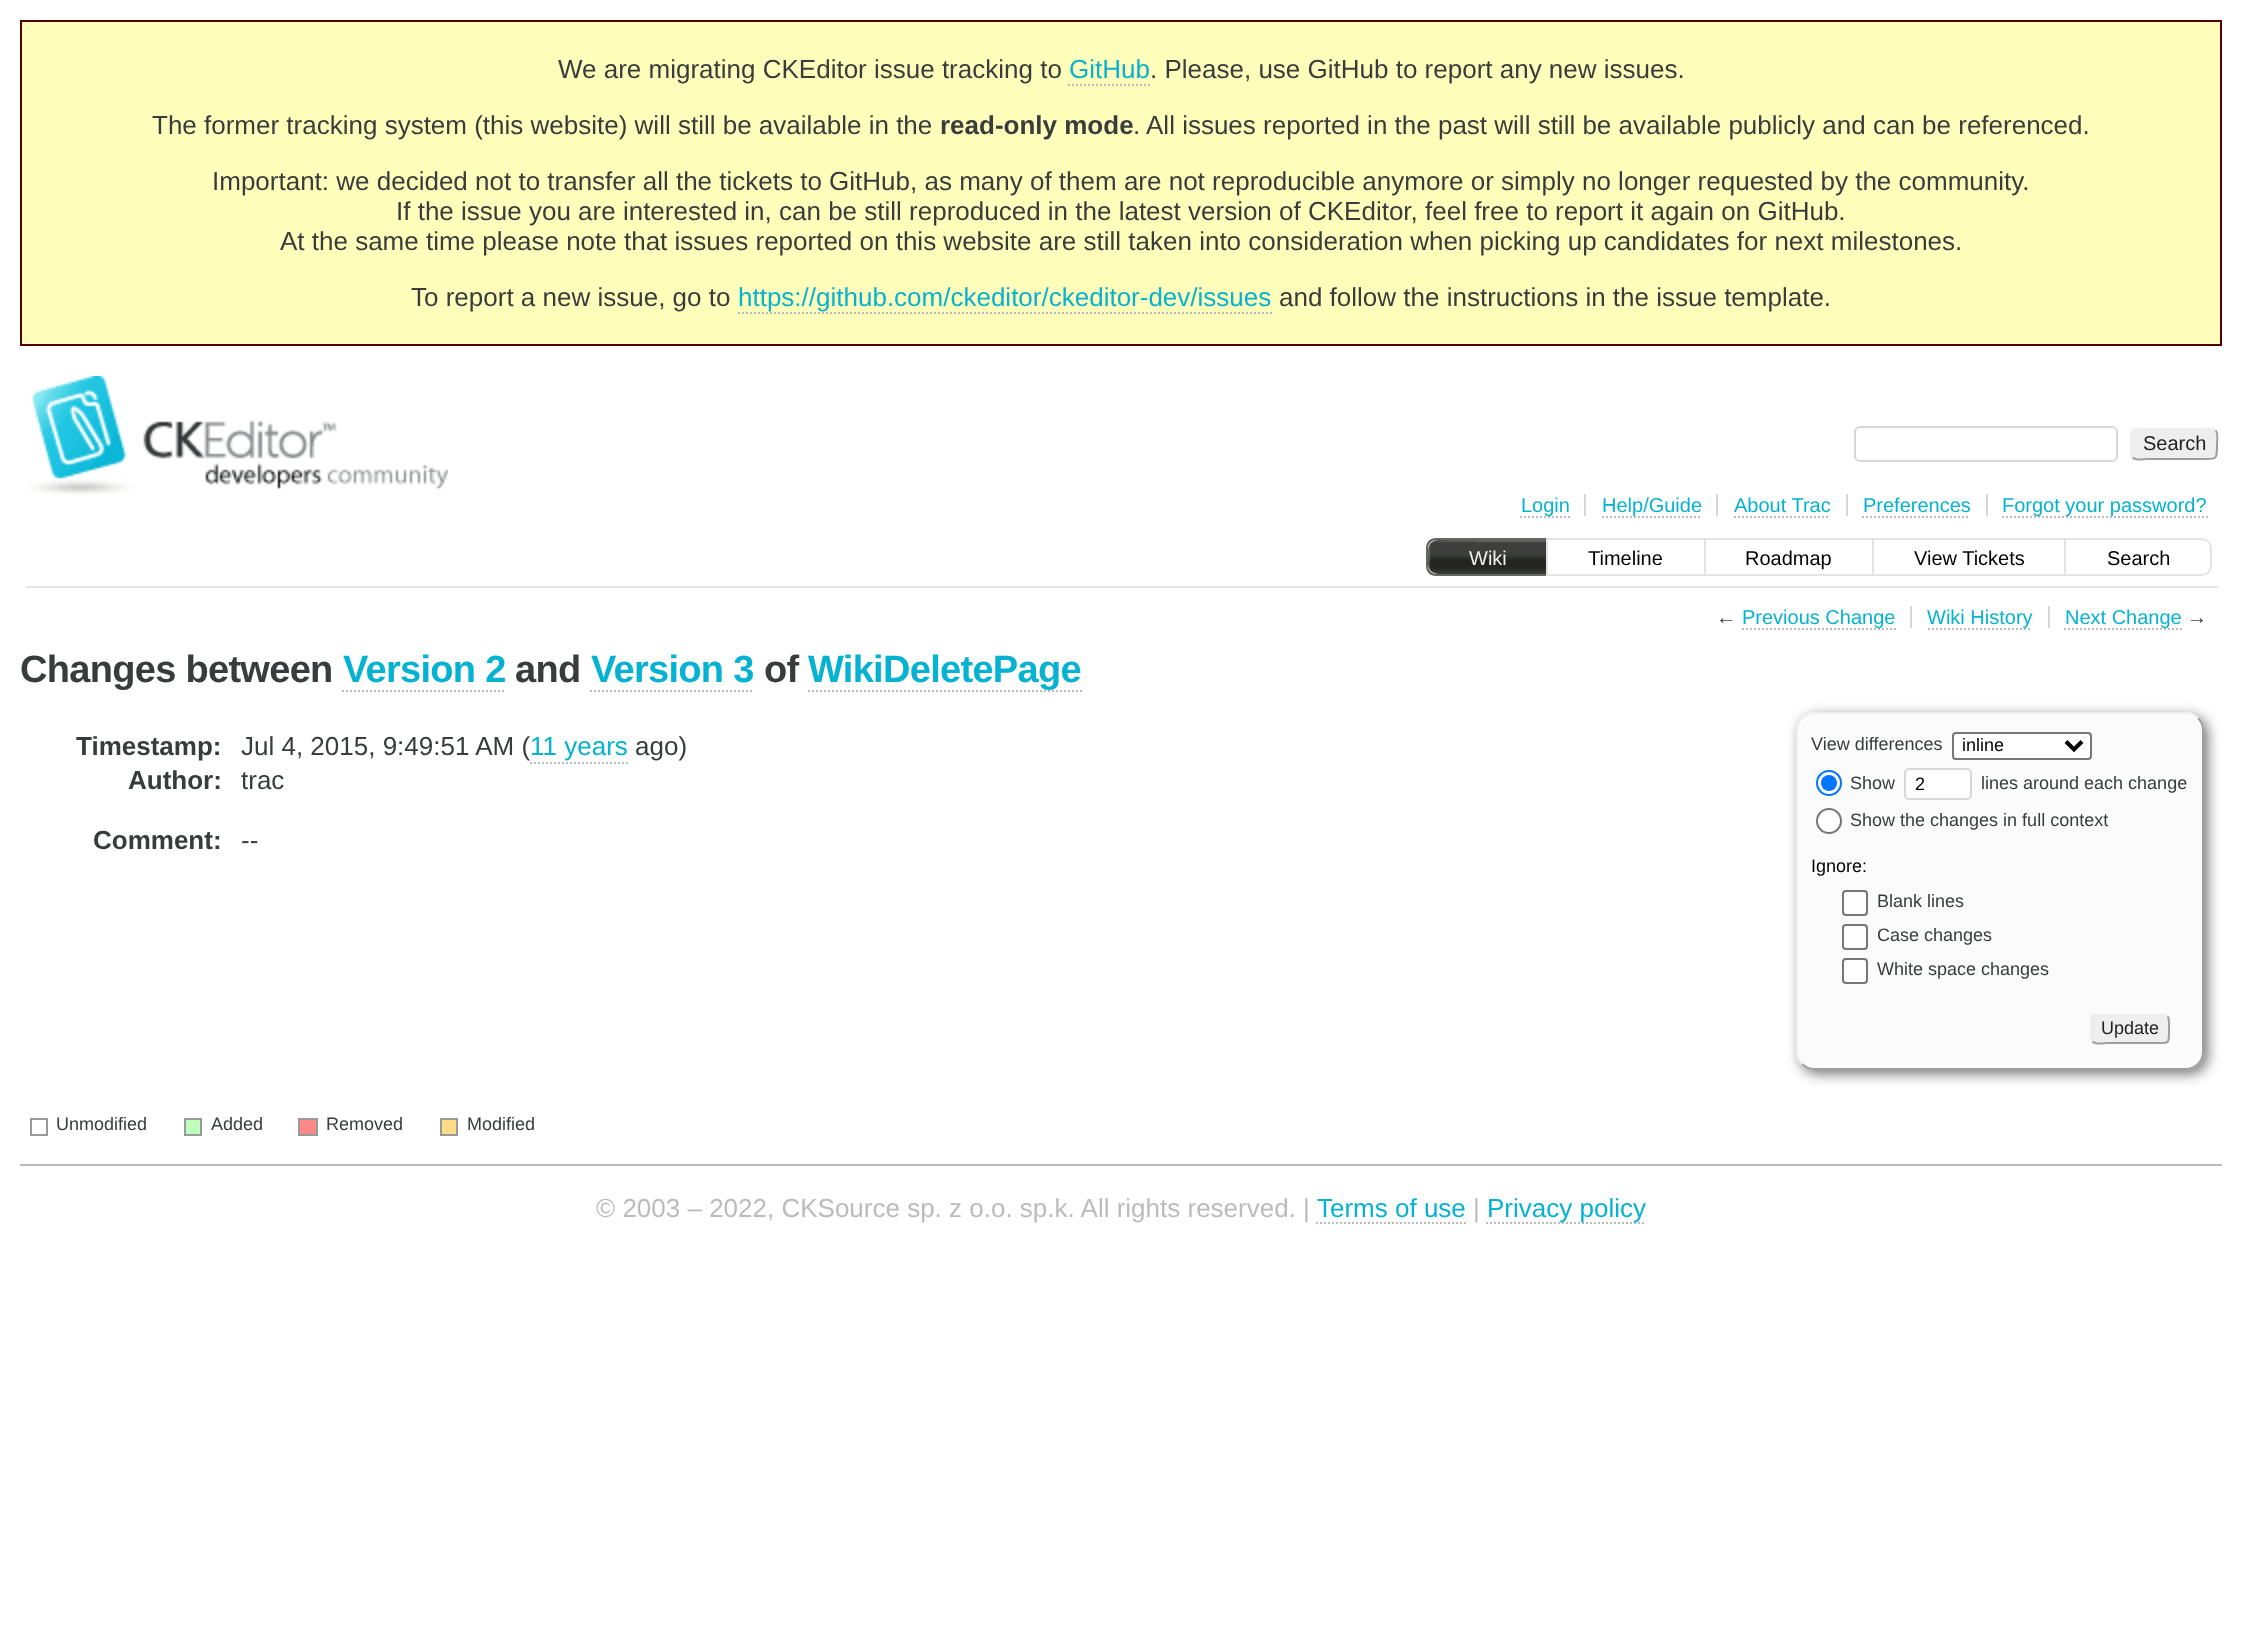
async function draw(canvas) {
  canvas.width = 2242
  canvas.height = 1638
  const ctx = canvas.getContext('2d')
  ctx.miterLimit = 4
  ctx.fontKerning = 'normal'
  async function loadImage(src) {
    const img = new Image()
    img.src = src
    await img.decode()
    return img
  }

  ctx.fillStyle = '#fff'
  ctx.fillRect(0, 0, 2242, 1638)
  ctx.fillStyle = '#ffb'
  ctx.beginPath()
  ctx.rect(21, 21, 2200, 324)
  ctx.fill()
  ctx.strokeStyle = '#500'
  ctx.lineWidth = 2
  ctx.stroke()
  ctx.font = '26px Liberation Sans'
  ctx.fillStyle = '#383c3d'
  ctx.fillText('We are migrating CKEditor issue tracking to', 558, 78)
  ctx.fillStyle = '#05b2d2'
  ctx.fillText('GitHub', 1069, 78)
  ctx.beginPath()
  ctx.moveTo(1068, 85)
  ctx.lineTo(1150, 85)
  ctx.strokeStyle = '#bbb'
  ctx.setLineDash([2, 2])
  ctx.stroke()
  ctx.fillStyle = '#383c3d'
  ctx.fillText('. Please, use GitHub to report any new issues.', 1150, 78)
  ctx.fillText('The former tracking system (this website) will still be available in the', 152, 134)
  ctx.font = 'bold 26px Liberation Sans'
  ctx.fillText('read-only mode', 940, 134)
  ctx.font = '26px Liberation Sans'
  ctx.fillText('. All issues reported in the past will still be available publicly and can be referenced.', 1133, 134)
  ctx.fillText('Important: we decided not to transfer all the tickets to GitHub, as many of them are not reproducible anymore or simply no longer requested by the community.', 212, 190)
  ctx.fillText('If the issue you are interested in, can be still reproduced in the latest version of CKEditor, feel free to report it again on GitHub.', 396, 220)
  ctx.fillText('At the same time please note that issues reported on this website are still taken into consideration when picking up candidates for next milestones.', 280, 250)
  ctx.fillText('To report a new issue, go to', 411, 306)
  ctx.fillStyle = '#05b2d2'
  ctx.fillText('https://github.com/ckeditor/ckeditor-dev/issues', 738, 306)
  ctx.beginPath()
  ctx.moveTo(738, 313)
  ctx.lineTo(1272, 313)
  ctx.stroke()
  ctx.fillStyle = '#383c3d'
  ctx.fillText('and follow the instructions in the issue template.', 1279, 306)
  ctx.drawImage(await loadImage('image0.png'), 29, 376, 419, 118)
  ctx.beginPath()
  ctx.roundRect(1855, 427, 262, 34, 5)
  ctx.strokeStyle = '#d7d7d7'
  ctx.setLineDash([])
  ctx.stroke()
  ctx.fillStyle = '#eee'
  ctx.beginPath()
  ctx.roundRect(2130, 428, 88, 32, 6)
  ctx.fill()
  ctx.beginPath()
  ctx.moveTo(2215.5, 430.5)
  ctx.bezierCurveTo(2218.5, 433, 2217, 440.5, 2217, 444)
  ctx.bezierCurveTo(2217, 461, 2217.5, 459, 2199.5, 459)
  ctx.lineTo(2148.5, 459)
  ctx.bezierCurveTo(2147.5, 459, 2136, 461, 2132.5, 457.5)
  ctx.strokeStyle = '#9f9f9f'
  ctx.stroke()
  ctx.beginPath()
  ctx.moveTo(2132.5, 457.5)
  ctx.bezierCurveTo(2129.5, 455, 2131, 447.5, 2131, 444)
  ctx.bezierCurveTo(2131, 427, 2130.5, 429, 2148.5, 429)
  ctx.lineTo(2199.5, 429)
  ctx.bezierCurveTo(2200.5, 429, 2212, 427, 2215.5, 430.5)
  ctx.strokeStyle = '#eee'
  ctx.stroke()
  ctx.font = '20px Liberation Sans'
  ctx.fillStyle = '#222'
  ctx.fillText('Search', 2143, 450)
  ctx.fillStyle = '#d7d7d7'
  ctx.fillRect(1584, 494, 2, 22)
  ctx.beginPath()
  ctx.moveTo(1520, 517)
  ctx.lineTo(1570, 517)
  ctx.strokeStyle = '#bbb'
  ctx.setLineDash([2, 2])
  ctx.stroke()
  ctx.fillStyle = '#05b2d2'
  ctx.fillText('Login', 1521, 512)
  ctx.fillStyle = '#d7d7d7'
  ctx.fillRect(1716, 494, 2, 22)
  ctx.beginPath()
  ctx.moveTo(1602, 517)
  ctx.lineTo(1702, 517)
  ctx.stroke()
  ctx.fillStyle = '#05b2d2'
  ctx.fillText('Help/Guide', 1602, 512)
  ctx.fillStyle = '#d7d7d7'
  ctx.fillRect(1846, 494, 2, 22)
  ctx.fillStyle = '#05b2d2'
  ctx.fillText('About Trac', 1734, 512)
  ctx.beginPath()
  ctx.moveTo(1734, 517)
  ctx.lineTo(1830, 517)
  ctx.stroke()
  ctx.fillStyle = '#d7d7d7'
  ctx.fillRect(1986, 494, 2, 22)
  ctx.fillStyle = '#05b2d2'
  ctx.fillText('Preferences', 1863, 512)
  ctx.beginPath()
  ctx.moveTo(1862, 517)
  ctx.lineTo(1970, 517)
  ctx.stroke()
  ctx.beginPath()
  ctx.moveTo(2002, 517)
  ctx.lineTo(2208, 517)
  ctx.stroke()
  ctx.fillText('Forgot your password?', 2002, 512)
  ctx.fillStyle = '#e4e4e4'
  ctx.fillRect(26, 586, 2192, 2)
  ctx.fillStyle = '#666'
  ctx.beginPath()
  ctx.moveTo(1436, 538)
  ctx.lineTo(1546, 538)
  ctx.lineTo(1546, 576)
  ctx.lineTo(1436, 576)
  ctx.bezierCurveTo(1430, 576, 1426, 572, 1426, 566)
  ctx.lineTo(1426, 548)
  ctx.bezierCurveTo(1426, 542, 1430, 538, 1436, 538)
  ctx.closePath()
  ctx.moveTo(1436, 540)
  ctx.lineTo(1546, 540)
  ctx.lineTo(1546, 574)
  ctx.lineTo(1436, 574)
  ctx.bezierCurveTo(1432, 574, 1428, 570, 1428, 566)
  ctx.lineTo(1428, 548)
  ctx.bezierCurveTo(1428, 544, 1432, 540, 1436, 540)
  ctx.closePath()
  ctx.fill('evenodd')
  ctx.fillStyle = '#000'
  ctx.beginPath()
  ctx.roundRect(1428, 540, 118, 34, [10, 0, 0, 10])
  ctx.fill()
  ctx.drawImage(await loadImage('image1.png'), 1428, 540, 118, 34)
  ctx.fillStyle = '#eee'
  ctx.fillText('Wiki', 1469, 565)
  ctx.fillStyle = '#e4e4e4'
  ctx.fillRect(1546, 538, 518, 2)
  ctx.fillRect(1546, 574, 518, 2)
  ctx.fillRect(1546, 538, 2, 38)
  ctx.fillStyle = '#000'
  ctx.fillText('Timeline', 1588, 565)
  ctx.fillStyle = '#e4e4e4'
  ctx.fillRect(1704, 538, 2, 38)
  ctx.fillStyle = '#000'
  ctx.fillText('Roadmap', 1745, 565)
  ctx.fillStyle = '#e4e4e4'
  ctx.fillRect(1872, 538, 2, 38)
  ctx.fillStyle = '#000'
  ctx.fillText('View Tickets', 1914, 565)
  ctx.beginPath()
  ctx.roundRect(2065, 539, 146, 36, [0, 9, 9, 0])
  ctx.strokeStyle = '#e4e4e4'
  ctx.setLineDash([])
  ctx.stroke()
  ctx.fillText('Search', 2107, 565)
  ctx.fillStyle = '#d7d7d7'
  ctx.fillRect(1910, 606, 2, 22)
  ctx.fillStyle = '#383c3d'
  ctx.fillText('←', 1716, 624)
  ctx.beginPath()
  ctx.moveTo(1742, 629)
  ctx.lineTo(1896, 629)
  ctx.strokeStyle = '#bbb'
  ctx.setLineDash([2, 2])
  ctx.stroke()
  ctx.fillStyle = '#05b2d2'
  ctx.fillText('Previous Change', 1742, 624)
  ctx.fillStyle = '#d7d7d7'
  ctx.fillRect(2048, 606, 2, 22)
  ctx.beginPath()
  ctx.moveTo(1928, 629)
  ctx.lineTo(2032, 629)
  ctx.stroke()
  ctx.fillStyle = '#05b2d2'
  ctx.fillText('Wiki History', 1927, 624)
  ctx.beginPath()
  ctx.moveTo(2064, 629)
  ctx.lineTo(2182, 629)
  ctx.stroke()
  ctx.fillText('Next Change', 2065, 624)
  ctx.fillStyle = '#383c3d'
  ctx.fillText('→', 2187, 624)
  ctx.letterSpacing = '-0.7px'
  ctx.font = 'bold 38px Liberation Sans'
  ctx.fillText('Changes between', 20, 682)
  ctx.fillStyle = '#05b2d2'
  ctx.fillText('Version 2', 343, 682)
  ctx.beginPath()
  ctx.moveTo(342, 691)
  ctx.lineTo(506, 691)
  ctx.stroke()
  ctx.fillStyle = '#383c3d'
  ctx.fillText('and', 515, 682)
  ctx.fillStyle = '#05b2d2'
  ctx.fillText('Version 3', 591, 682)
  ctx.beginPath()
  ctx.moveTo(590, 691)
  ctx.lineTo(754, 691)
  ctx.stroke()
  ctx.fillStyle = '#383c3d'
  ctx.fillText('of', 764, 682)
  ctx.beginPath()
  ctx.moveTo(808, 691)
  ctx.lineTo(1082, 691)
  ctx.stroke()
  ctx.fillStyle = '#05b2d2'
  ctx.fillText('WikiDeletePage', 808, 682)
  ctx.letterSpacing = '0px'
  ctx.font = 'bold 26px Liberation Sans'
  ctx.fillStyle = '#383c3d'
  ctx.fillText('Timestamp:', 76, 755)
  ctx.font = '26px Liberation Sans'
  ctx.fillText('Jul 4, 2015, 9:49:51 AM (', 241, 755)
  ctx.fillStyle = '#05b2d2'
  ctx.fillText('11 years', 530, 755)
  ctx.beginPath()
  ctx.moveTo(530, 763)
  ctx.lineTo(628, 763)
  ctx.stroke()
  ctx.fillStyle = '#383c3d'
  ctx.fillText('ago)', 635, 755)
  ctx.font = 'bold 26px Liberation Sans'
  ctx.fillText('Author:', 128, 789)
  ctx.font = '26px Liberation Sans'
  ctx.fillText('trac', 241, 789)
  ctx.font = 'bold 26px Liberation Sans'
  ctx.fillText('Comment:', 93, 849)
  ctx.font = '26px Liberation Sans'
  ctx.fillText('--', 241, 849)
  ctx.fillStyle = '#777'
  ctx.filter = 'blur(6.5px)'
  ctx.beginPath()
  ctx.roundRect(1800, 716, 408, 358, 18)
  ctx.fill()
  ctx.filter = 'none'
  ctx.fillStyle = '#fbfbfb'
  ctx.beginPath()
  ctx.roundRect(1796, 712, 408, 358, 18)
  ctx.fill()
  ctx.beginPath()
  ctx.moveTo(2198, 718)
  ctx.bezierCurveTo(2201, 721, 2203, 725.5, 2203, 730)
  ctx.lineTo(2203, 1052)
  ctx.bezierCurveTo(2203, 1056.5, 2201, 1061, 2198, 1064)
  ctx.bezierCurveTo(2195, 1067, 2190.5, 1069, 2186, 1069)
  ctx.lineTo(1814, 1069)
  ctx.bezierCurveTo(1809.5, 1069, 1805, 1067, 1802, 1064)
  ctx.strokeStyle = '#9f9f9f'
  ctx.setLineDash([])
  ctx.stroke()
  ctx.beginPath()
  ctx.moveTo(1802, 1064)
  ctx.bezierCurveTo(1799, 1061, 1797, 1056.5, 1797, 1052)
  ctx.lineTo(1797, 730)
  ctx.bezierCurveTo(1797, 725.5, 1799, 721, 1802, 718)
  ctx.bezierCurveTo(1805, 715, 1809.5, 713, 1814, 713)
  ctx.lineTo(2186, 713)
  ctx.bezierCurveTo(2190.5, 713, 2195, 715, 2198, 718)
  ctx.strokeStyle = '#eee'
  ctx.stroke()
  ctx.font = '18px Liberation Sans'
  ctx.fillStyle = '#383c3d'
  ctx.fillText('View differences', 1811, 750)
  ctx.fillStyle = '#fff'
  ctx.beginPath()
  ctx.roundRect(1953, 733, 138, 26, 3)
  ctx.fill()
  ctx.strokeStyle = '#767676'
  ctx.stroke()
  ctx.beginPath()
  ctx.moveTo(2066, 741.5)
  ctx.lineTo(2074, 749.5)
  ctx.lineTo(2082, 741.5)
  ctx.strokeStyle = '#000'
  ctx.lineWidth = 4
  ctx.stroke()
  ctx.fillStyle = '#000'
  ctx.fillText('inline', 1962, 751)
  ctx.fillStyle = '#fff'
  ctx.beginPath()
  ctx.arc(1829, 783, 12, 0, 2 * Math.PI)
  ctx.fill()
  ctx.strokeStyle = '#0075ff'
  ctx.lineWidth = 2
  ctx.stroke()
  ctx.fillStyle = '#0075ff'
  ctx.beginPath()
  ctx.arc(1829, 783, 8, 0, 2 * Math.PI)
  ctx.fill()
  ctx.fillStyle = '#383c3d'
  ctx.fillText('Show', 1850, 789)
  ctx.fillStyle = '#fff'
  ctx.beginPath()
  ctx.roundRect(1905, 769, 66, 30, 4)
  ctx.fill()
  ctx.strokeStyle = '#d7d7d7'
  ctx.stroke()
  ctx.fillStyle = '#000'
  ctx.fillText('2', 1915, 790)
  ctx.fillStyle = '#383c3d'
  ctx.fillText('lines around each change', 1981, 789)
  ctx.fillStyle = '#fff'
  ctx.beginPath()
  ctx.arc(1829, 821, 12, 0, 2 * Math.PI)
  ctx.fill()
  ctx.strokeStyle = '#767676'
  ctx.stroke()
  ctx.fillStyle = '#383c3d'
  ctx.fillText('Show the changes in full context', 1850, 826)
  ctx.fillStyle = '#000'
  ctx.fillText('Ignore:', 1811, 872)
  ctx.fillStyle = '#fff'
  ctx.beginPath()
  ctx.roundRect(1843, 891, 24, 24, 3)
  ctx.fill()
  ctx.stroke()
  ctx.fillStyle = '#383c3d'
  ctx.fillText('Blank lines', 1877, 907)
  ctx.fillStyle = '#fff'
  ctx.beginPath()
  ctx.roundRect(1843, 925, 24, 24, 3)
  ctx.fill()
  ctx.stroke()
  ctx.fillStyle = '#383c3d'
  ctx.fillText('Case changes', 1877, 941)
  ctx.fillStyle = '#fff'
  ctx.beginPath()
  ctx.roundRect(1843, 959, 24, 24, 3)
  ctx.fill()
  ctx.stroke()
  ctx.fillStyle = '#383c3d'
  ctx.fillText('White space changes', 1877, 975)
  ctx.fillStyle = '#eee'
  ctx.beginPath()
  ctx.roundRect(2090, 1014, 80, 30, 5)
  ctx.fill()
  ctx.beginPath()
  ctx.moveTo(2167.5, 1016.5)
  ctx.bezierCurveTo(2170, 1019, 2169, 1026, 2169, 1029)
  ctx.bezierCurveTo(2169, 1045, 2170, 1043, 2153, 1043)
  ctx.lineTo(2107, 1043)
  ctx.bezierCurveTo(2106.5, 1043, 2095.5, 1045, 2092.5, 1041.5)
  ctx.strokeStyle = '#9f9f9f'
  ctx.stroke()
  ctx.beginPath()
  ctx.moveTo(2092.5, 1041.5)
  ctx.bezierCurveTo(2090, 1039, 2091, 1032, 2091, 1029)
  ctx.bezierCurveTo(2091, 1013, 2090, 1015, 2107, 1015)
  ctx.lineTo(2153, 1015)
  ctx.bezierCurveTo(2153.5, 1015, 2164.5, 1013, 2167.5, 1016.5)
  ctx.strokeStyle = '#eee'
  ctx.stroke()
  ctx.fillStyle = '#222'
  ctx.fillText('Update', 2101, 1034)
  ctx.strokeStyle = '#999'
  ctx.strokeRect(31, 1119, 16, 16)
  ctx.fillStyle = '#383c3d'
  ctx.fillText('Unmodified', 56, 1130)
  ctx.fillStyle = '#bfb'
  ctx.beginPath()
  ctx.rect(185, 1119, 16, 16)
  ctx.fill()
  ctx.stroke()
  ctx.fillStyle = '#383c3d'
  ctx.fillText('Added', 211, 1130)
  ctx.fillStyle = '#f88'
  ctx.beginPath()
  ctx.rect(299, 1119, 18, 16)
  ctx.fill()
  ctx.stroke()
  ctx.fillStyle = '#383c3d'
  ctx.fillText('Removed', 326, 1130)
  ctx.fillStyle = '#fd8'
  ctx.beginPath()
  ctx.rect(441, 1119, 16, 16)
  ctx.fill()
  ctx.stroke()
  ctx.fillStyle = '#383c3d'
  ctx.fillText('Modified', 467, 1130)
  ctx.fillStyle = '#bbb'
  ctx.fillRect(20, 1164, 2202, 2)
  ctx.font = '26px Liberation Sans'
  ctx.fillText('© 2003 – 2022, CKSource sp. z o.o. sp.k. All rights reserved. |', 596, 1217)
  ctx.fillStyle = '#05b2d2'
  ctx.fillText('Terms of use', 1317, 1217)
  ctx.beginPath()
  ctx.moveTo(1316, 1223)
  ctx.lineTo(1466, 1223)
  ctx.strokeStyle = '#bbb'
  ctx.setLineDash([2, 2])
  ctx.stroke()
  ctx.fillStyle = '#bbb'
  ctx.fillText('|', 1473, 1217)
  ctx.beginPath()
  ctx.moveTo(1486, 1223)
  ctx.lineTo(1646, 1223)
  ctx.stroke()
  ctx.fillStyle = '#05b2d2'
  ctx.fillText('Privacy policy', 1487, 1217)
}

draw(document.querySelector('canvas'))
